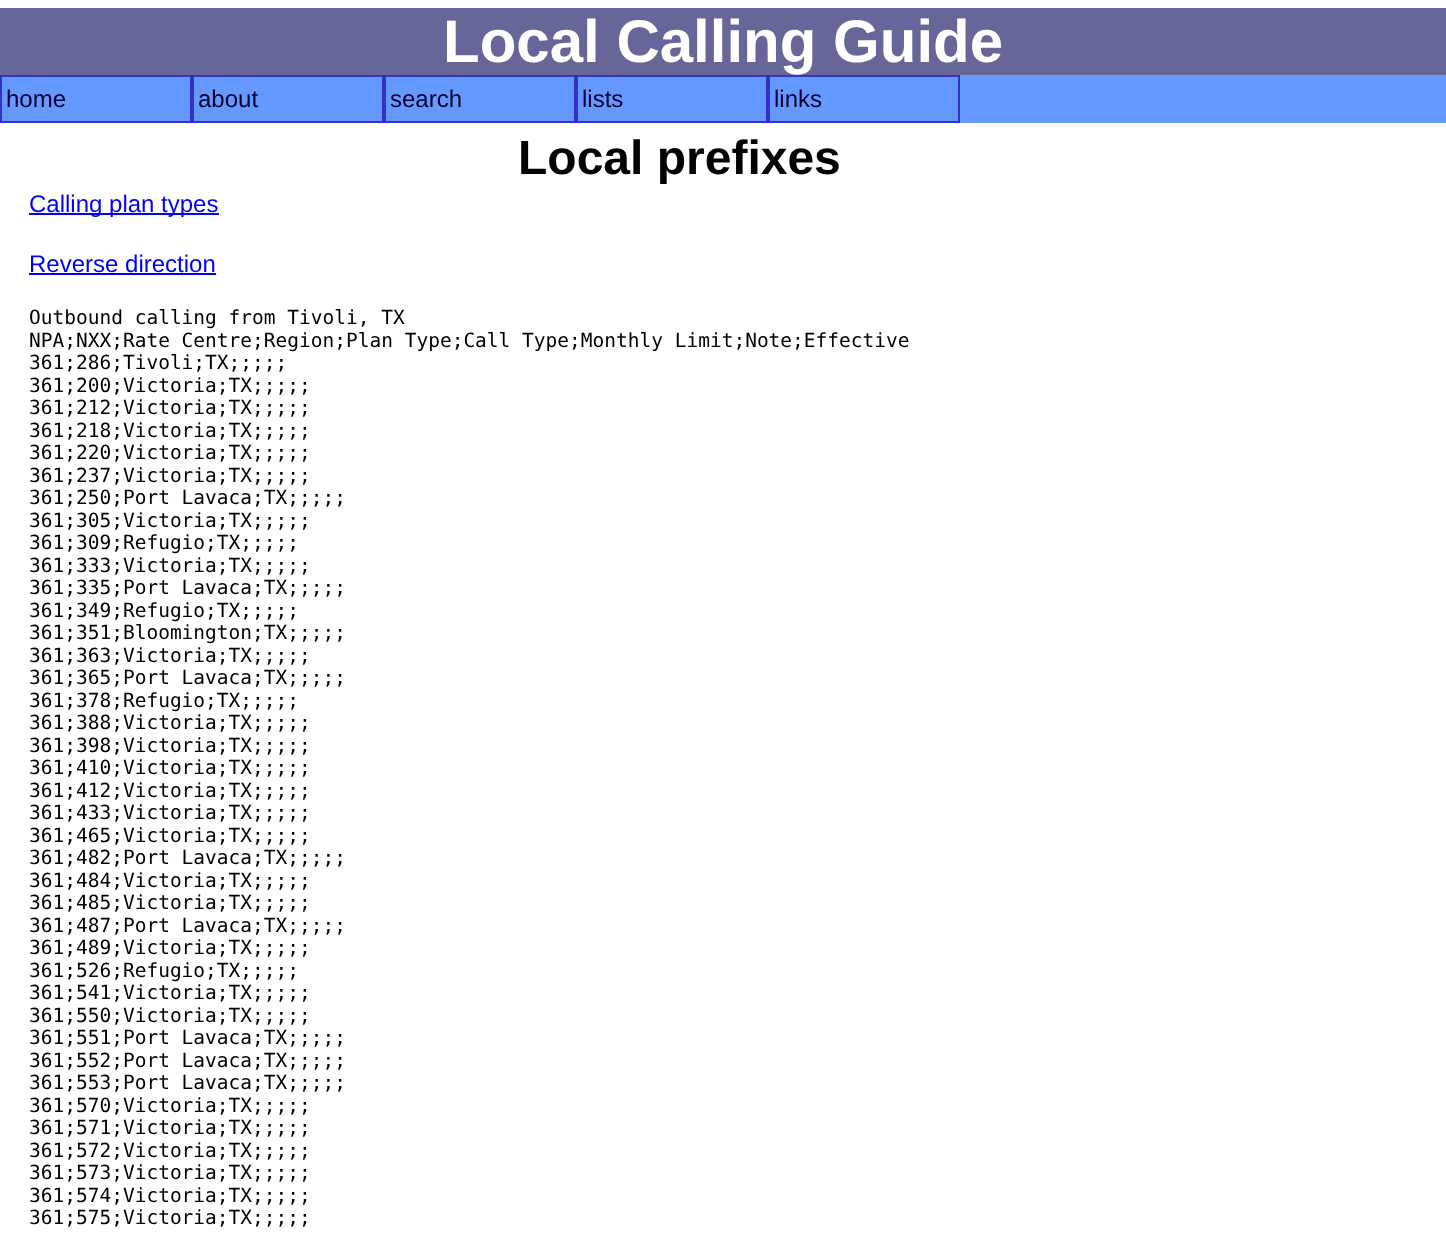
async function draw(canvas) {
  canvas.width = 1446
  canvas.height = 1240
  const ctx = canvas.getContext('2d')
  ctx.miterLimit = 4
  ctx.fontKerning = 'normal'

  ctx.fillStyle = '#fff'
  ctx.fillRect(0, 0, 1446, 1240)
  ctx.fillStyle = '#669'
  ctx.fillRect(0, 8, 1446, 67)
  ctx.font = 'bold 60px Liberation Sans'
  ctx.fillStyle = '#fff'
  ctx.fillText('Local Calling Guide', 443, 62)
  ctx.fillStyle = '#69f'
  ctx.fillRect(2, 75, 1444, 48)
  ctx.strokeStyle = '#33c'
  ctx.lineWidth = 2
  ctx.strokeRect(1, 76, 190, 46)
  ctx.font = '24px Liberation Sans'
  ctx.fillStyle = '#003'
  ctx.fillText('home', 6, 107)
  ctx.strokeRect(193, 76, 190, 46)
  ctx.fillText('about', 198, 107)
  ctx.strokeRect(385, 76, 190, 46)
  ctx.fillText('search', 390, 107)
  ctx.strokeRect(577, 76, 190, 46)
  ctx.fillText('lists', 582, 107)
  ctx.strokeRect(769, 76, 190, 46)
  ctx.fillText('links', 774, 107)
  ctx.font = 'bold 48px Liberation Sans'
  ctx.fillStyle = '#000'
  ctx.fillText('Local prefixes', 518, 174)
  ctx.fillStyle = '#00f'
  ctx.fillRect(29, 213, 190, 2)
  ctx.font = '24px Liberation Sans'
  ctx.fillText('Calling plan types', 29, 212)
  ctx.fillText('Reverse direction', 29, 272)
  ctx.fillRect(29, 273, 187, 2)
  ctx.font = '19.5px DejaVu Sans Mono'
  ctx.fillStyle = '#000'
  ctx.fillText('Outbound calling from Tivoli, TX', 29, 324)
  ctx.fillText('NPA;NXX;Rate Centre;Region;Plan Type;Call Type;Monthly Limit;Note;Effective', 29, 347)
  ctx.fillText('361;286;Tivoli;TX;;;;;', 29, 369)
  ctx.fillText('361;200;Victoria;TX;;;;;', 29, 392)
  ctx.fillText('361;212;Victoria;TX;;;;;', 29, 414)
  ctx.fillText('361;218;Victoria;TX;;;;;', 29, 437)
  ctx.fillText('361;220;Victoria;TX;;;;;', 29, 459)
  ctx.fillText('361;237;Victoria;TX;;;;;', 29, 482)
  ctx.fillText('361;250;Port Lavaca;TX;;;;;', 29, 504)
  ctx.fillText('361;305;Victoria;TX;;;;;', 29, 527)
  ctx.fillText('361;309;Refugio;TX;;;;;', 29, 549)
  ctx.fillText('361;333;Victoria;TX;;;;;', 29, 572)
  ctx.fillText('361;335;Port Lavaca;TX;;;;;', 29, 594)
  ctx.fillText('361;349;Refugio;TX;;;;;', 29, 617)
  ctx.fillText('361;351;Bloomington;TX;;;;;', 29, 639)
  ctx.fillText('361;363;Victoria;TX;;;;;', 29, 662)
  ctx.fillText('361;365;Port Lavaca;TX;;;;;', 29, 684)
  ctx.fillText('361;378;Refugio;TX;;;;;', 29, 707)
  ctx.fillText('361;388;Victoria;TX;;;;;', 29, 729)
  ctx.fillText('361;398;Victoria;TX;;;;;', 29, 752)
  ctx.fillText('361;410;Victoria;TX;;;;;', 29, 774)
  ctx.fillText('361;412;Victoria;TX;;;;;', 29, 797)
  ctx.fillText('361;433;Victoria;TX;;;;;', 29, 819)
  ctx.fillText('361;465;Victoria;TX;;;;;', 29, 842)
  ctx.fillText('361;482;Port Lavaca;TX;;;;;', 29, 864)
  ctx.fillText('361;484;Victoria;TX;;;;;', 29, 887)
  ctx.fillText('361;485;Victoria;TX;;;;;', 29, 909)
  ctx.fillText('361;487;Port Lavaca;TX;;;;;', 29, 932)
  ctx.fillText('361;489;Victoria;TX;;;;;', 29, 954)
  ctx.fillText('361;526;Refugio;TX;;;;;', 29, 977)
  ctx.fillText('361;541;Victoria;TX;;;;;', 29, 999)
  ctx.fillText('361;550;Victoria;TX;;;;;', 29, 1022)
  ctx.fillText('361;551;Port Lavaca;TX;;;;;', 29, 1044)
  ctx.fillText('361;552;Port Lavaca;TX;;;;;', 29, 1067)
  ctx.fillText('361;553;Port Lavaca;TX;;;;;', 29, 1089)
  ctx.fillText('361;570;Victoria;TX;;;;;', 29, 1112)
  ctx.fillText('361;571;Victoria;TX;;;;;', 29, 1134)
  ctx.fillText('361;572;Victoria;TX;;;;;', 29, 1157)
  ctx.fillText('361;573;Victoria;TX;;;;;', 29, 1179)
  ctx.fillText('361;574;Victoria;TX;;;;;', 29, 1202)
  ctx.fillText('361;575;Victoria;TX;;;;;', 29, 1224)
}

draw(document.querySelector('canvas'))
